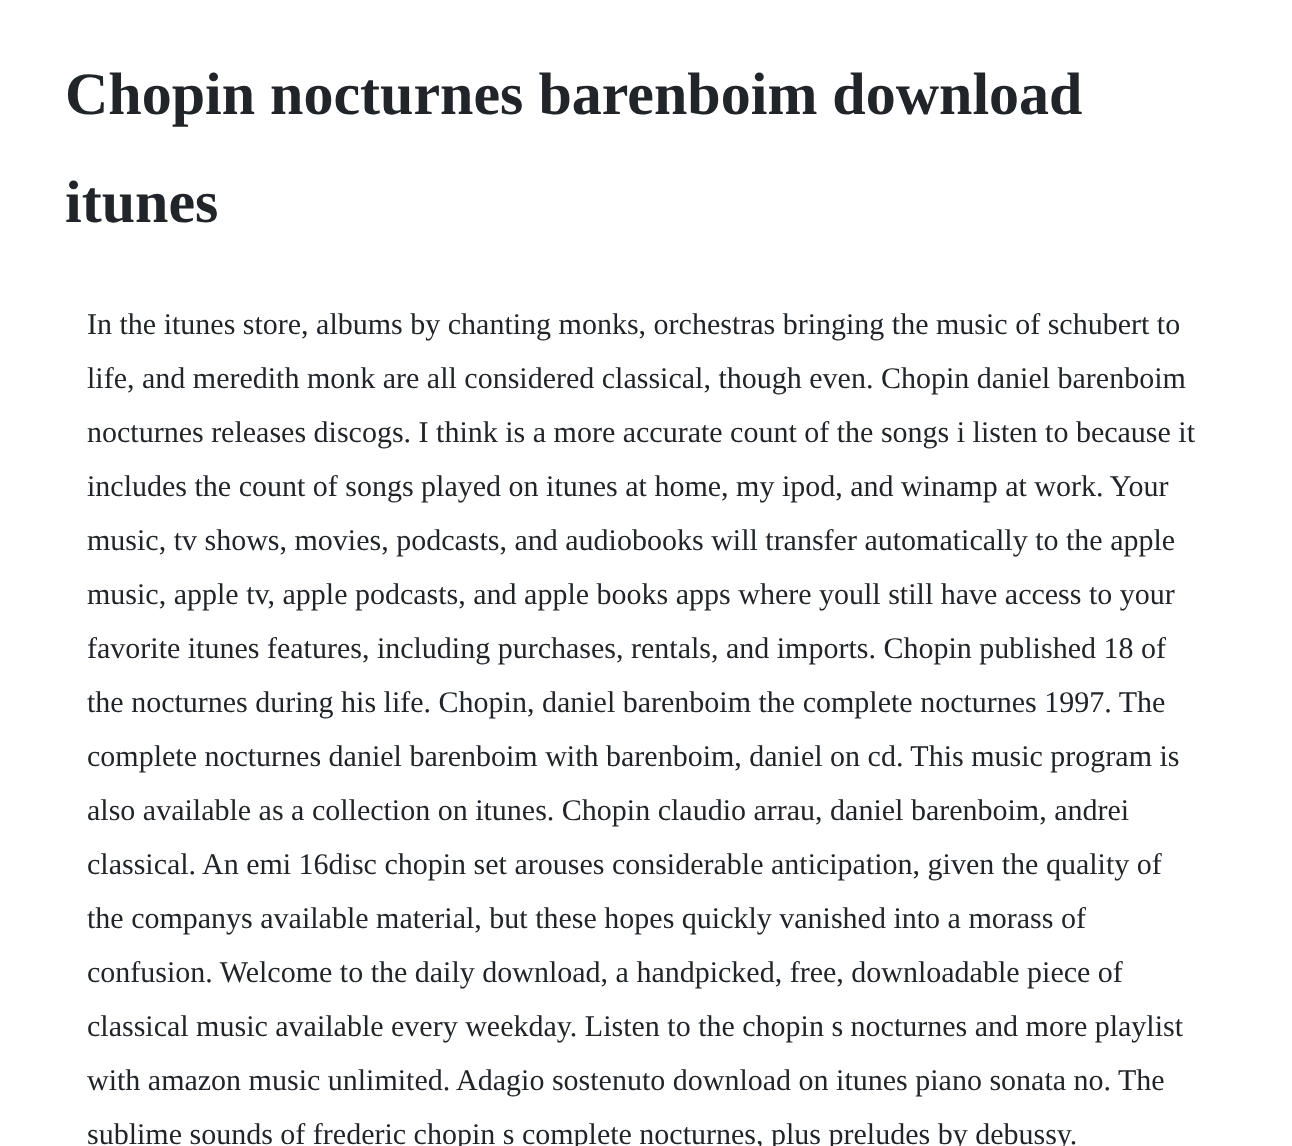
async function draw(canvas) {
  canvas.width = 1292
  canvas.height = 1146
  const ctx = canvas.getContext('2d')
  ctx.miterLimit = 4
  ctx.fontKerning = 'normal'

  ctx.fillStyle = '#fff'
  ctx.fillRect(0, 0, 1292, 1146)
  ctx.font = 'bold 60px Liberation Serif'
  ctx.fillStyle = '#212529'
  ctx.fillText('Chopin nocturnes barenboim download', 65, 114)
  ctx.fillText('itunes', 65, 222)
  ctx.font = '30px Liberation Serif'
  ctx.fillText('In the itunes store, albums by chanting monks, orchestras bringing the music of schubert to', 87, 334)
  ctx.fillText('life, and meredith monk are all considered classical, though even. Chopin daniel barenboim', 87, 388)
  ctx.fillText('nocturnes releases discogs. I think is a more accurate count of the songs i listen to because it', 87, 442)
  ctx.fillText('includes the count of songs played on itunes at home, my ipod, and winamp at work. Your', 87, 496)
  ctx.fillText('music, tv shows, movies, podcasts, and audiobooks will transfer automatically to the apple', 87, 550)
  ctx.fillText('music, apple tv, apple podcasts, and apple books apps where youll still have access to your', 87, 604)
  ctx.fillText('favorite itunes features, including purchases, rentals, and imports. Chopin published 18 of', 87, 658)
  ctx.fillText('the nocturnes during his life. Chopin, daniel barenboim the complete nocturnes 1997. The', 87, 712)
  ctx.fillText('complete nocturnes daniel barenboim with barenboim, daniel on cd. This music program is', 87, 766)
  ctx.fillText('also available as a collection on itunes. Chopin claudio arrau, daniel barenboim, andrei', 87, 820)
  ctx.fillText('classical. An emi 16disc chopin set arouses considerable anticipation, given the quality of', 87, 874)
  ctx.fillText('the companys available material, but these hopes quickly vanished into a morass of', 87, 928)
  ctx.fillText('confusion. Welcome to the daily download, a handpicked, free, downloadable piece of', 87, 982)
  ctx.fillText('classical music available every weekday. Listen to the chopin s nocturnes and more playlist', 87, 1036)
  ctx.fillText('with amazon music unlimited. Adagio sostenuto download on itunes piano sonata no. The', 87, 1090)
  ctx.fillText('sublime sounds of frederic chopin s complete nocturnes, plus preludes by debussy.', 87, 1144)
}

draw(document.querySelector('canvas'))
